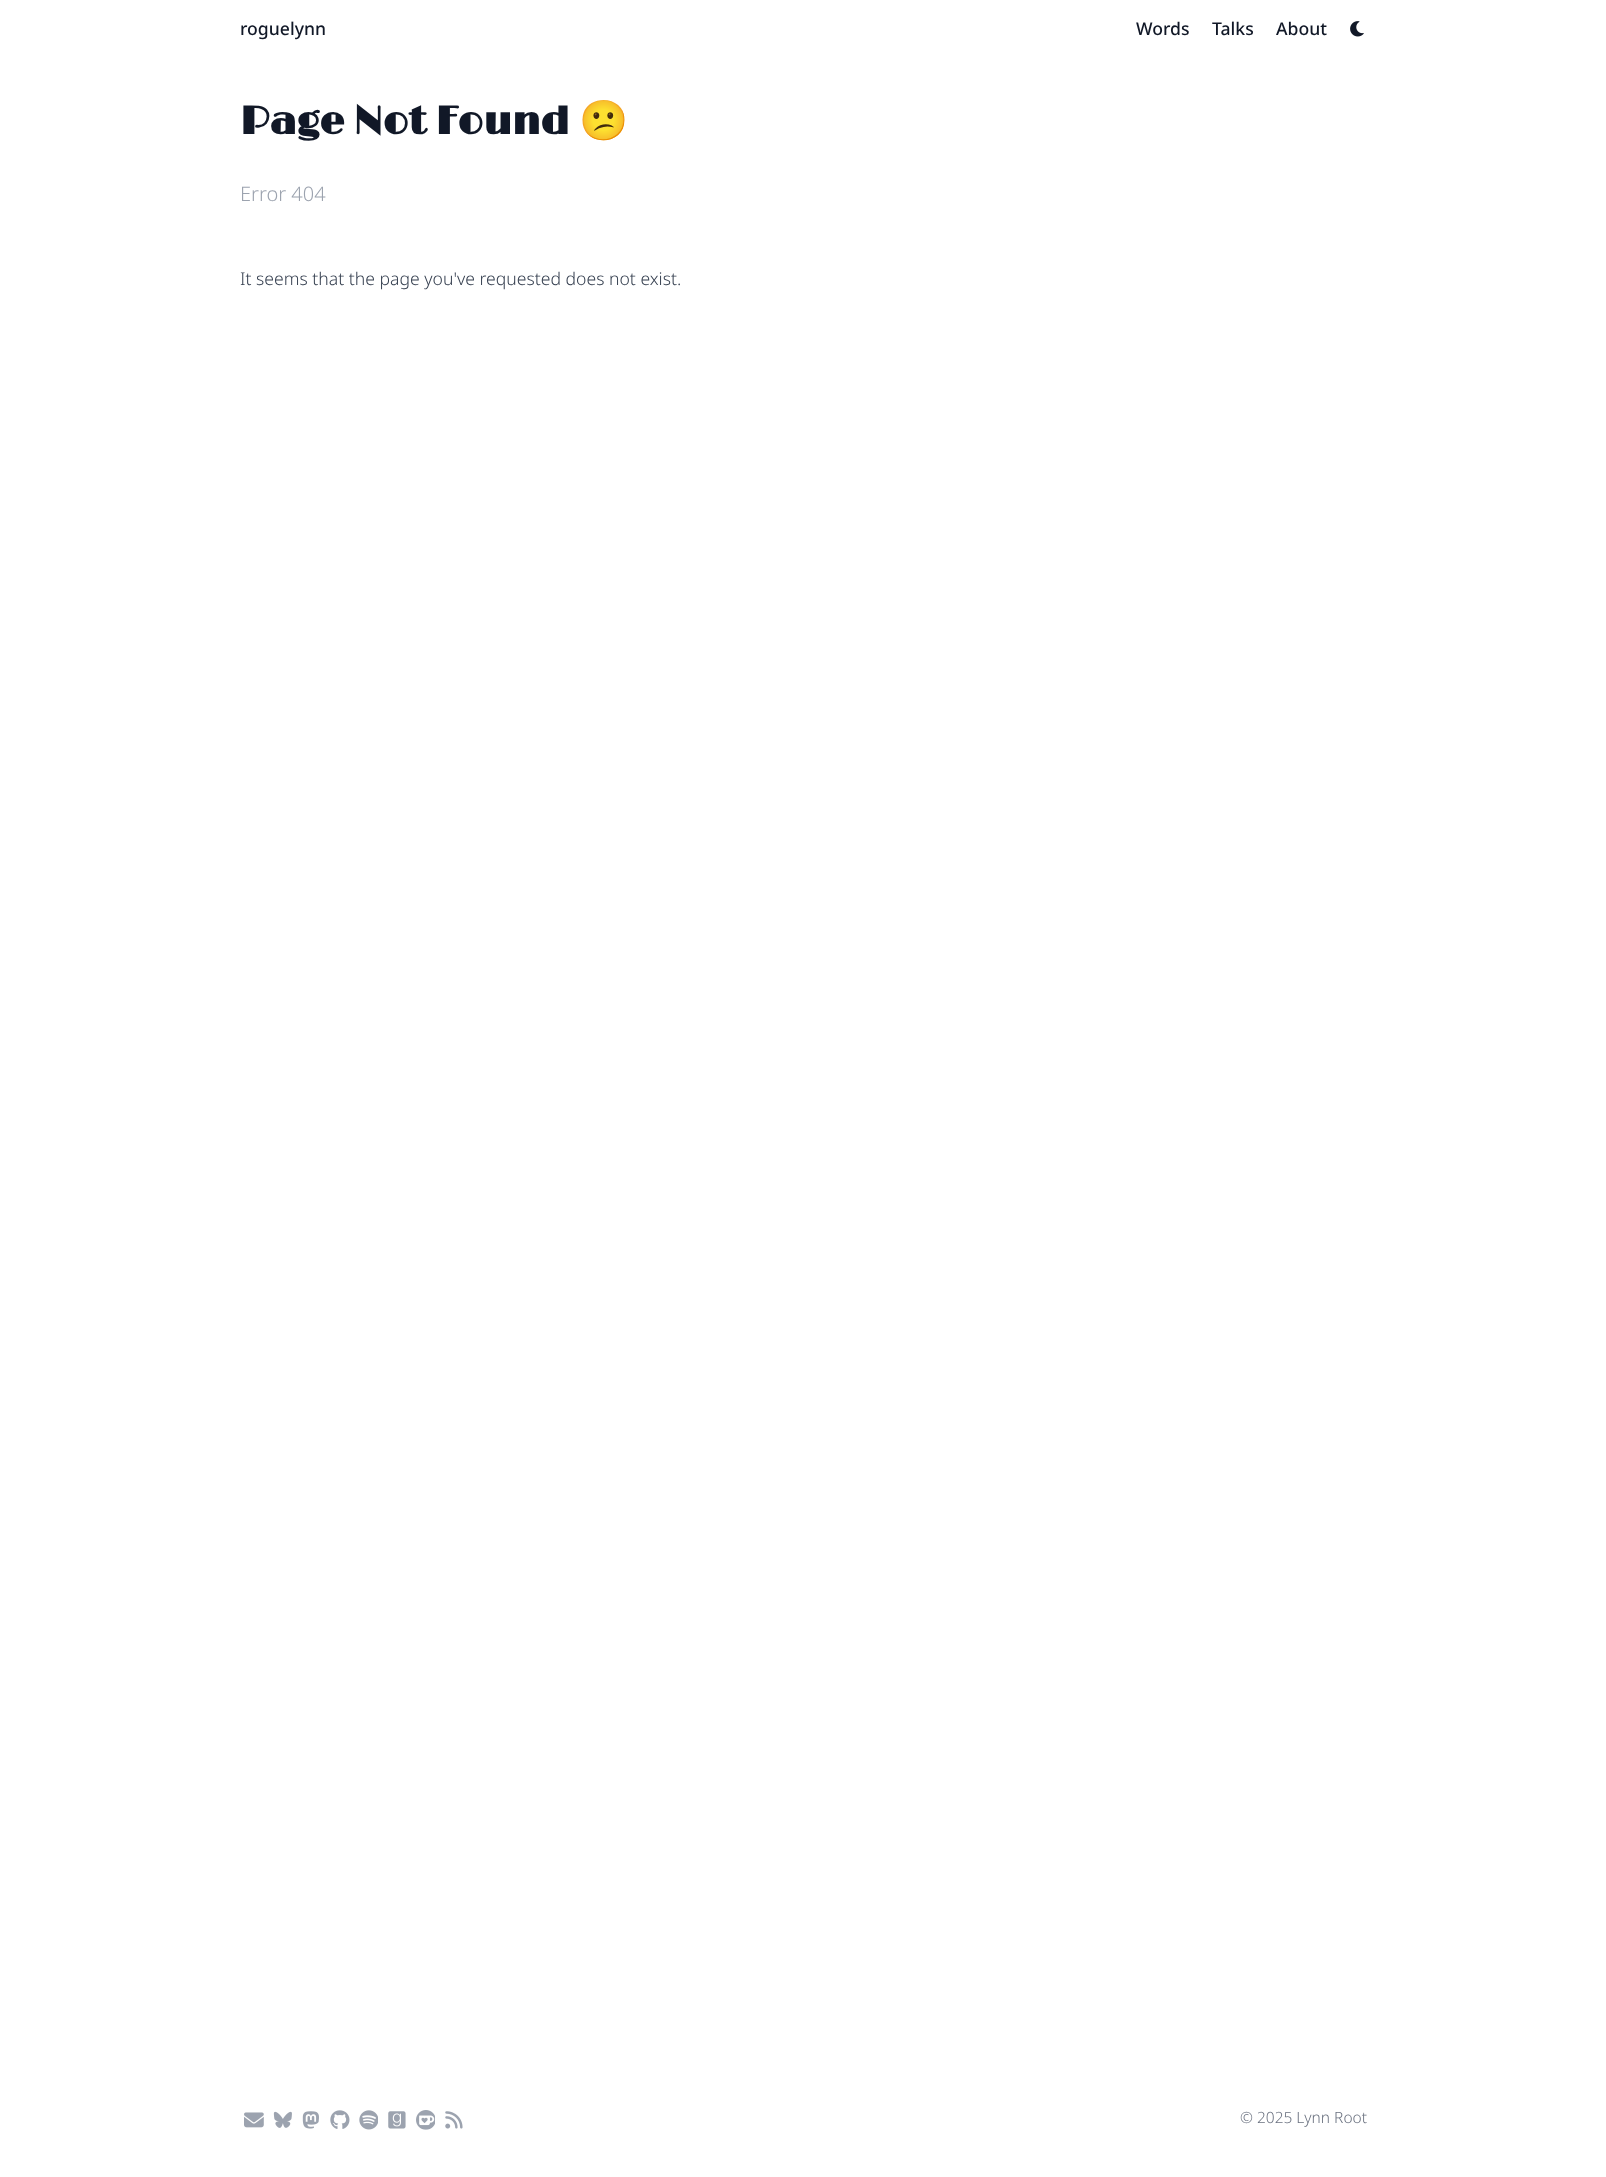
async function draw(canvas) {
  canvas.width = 1606
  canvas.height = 2177
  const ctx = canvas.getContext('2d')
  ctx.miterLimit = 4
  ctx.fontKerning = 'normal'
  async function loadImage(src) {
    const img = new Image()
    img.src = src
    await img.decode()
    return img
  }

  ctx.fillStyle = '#fff'
  ctx.fillRect(0, 0, 1606, 2177)
  ctx.font = '500 17.6px Noto Sans'
  ctx.fillStyle = '#111827'
  ctx.fillText('roguelynn', 240, 35)
  ctx.fillText('Words', 1136, 35)
  ctx.fillText('Talks', 1212, 35)
  ctx.fillText('About', 1276, 35)
  ctx.drawImage(await loadImage('image0.png'), 1350, 21, 14, 16)
  ctx.font = 'bold 39.5px Limelight'
  ctx.fillText('Page Not Found', 240, 134)
  ctx.font = 'bold 39.5px Noto Color Emoji'
  ctx.fillText('😕', 579, 134)
  ctx.font = '300 20px Noto Sans'
  ctx.fillStyle = '#9ca3af'
  ctx.fillText('Error 404', 240, 201)
  ctx.font = '300 17.6px Noto Sans'
  ctx.fillStyle = '#374151'
  ctx.fillText('It seems that the page you\'ve requested does not exist.', 240, 285)
  ctx.drawImage(await loadImage('image1.png'), 244, 2112, 20, 16)
  ctx.drawImage(await loadImage('image2.png'), 273, 2111, 19, 17)
  ctx.drawImage(await loadImage('image3.png'), 302, 2111, 17, 18)
  ctx.drawImage(await loadImage('image4.png'), 330, 2110, 20, 19)
  ctx.drawImage(await loadImage('image5.png'), 359, 2110, 19, 20)
  ctx.drawImage(await loadImage('image6.png'), 388, 2111, 18, 18)
  ctx.drawImage(await loadImage('image7.png'), 416, 2110, 19, 20)
  ctx.drawImage(await loadImage('image8.png'), 445, 2111, 18, 18)
  ctx.font = '300 15.5px Noto Sans'
  ctx.fillStyle = '#6b7280'
  ctx.fillText('© 2025 Lynn Root', 1240, 2123)
}

draw(document.querySelector('canvas'))
